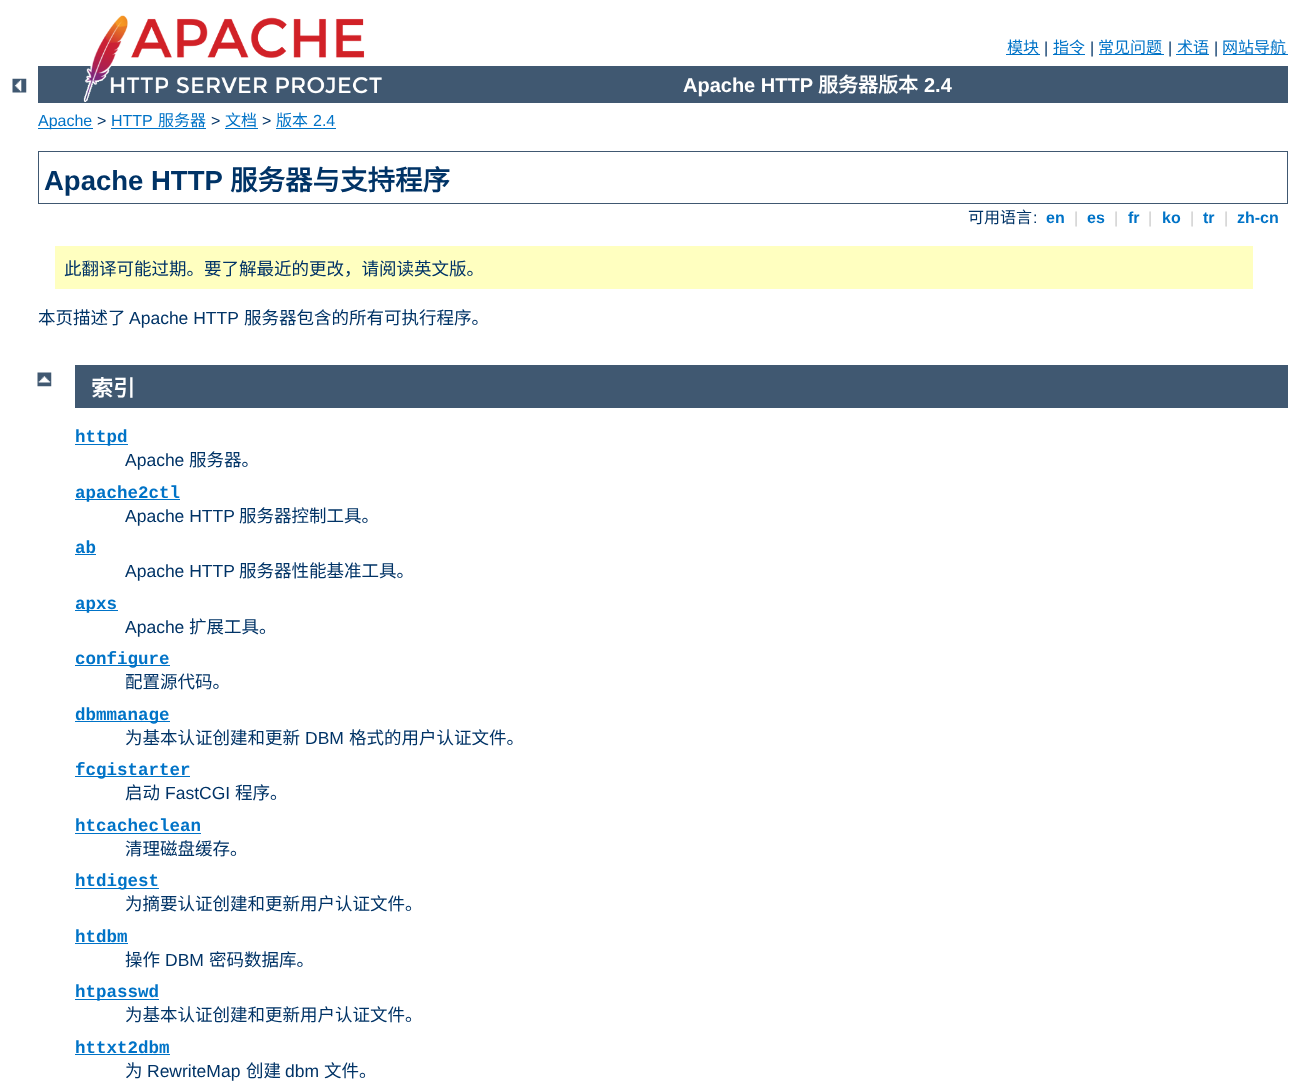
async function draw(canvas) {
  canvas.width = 1304
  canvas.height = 1082
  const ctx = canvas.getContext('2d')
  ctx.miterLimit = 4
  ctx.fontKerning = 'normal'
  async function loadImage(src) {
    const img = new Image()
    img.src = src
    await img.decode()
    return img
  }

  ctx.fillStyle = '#fff'
  ctx.fillRect(0, 0, 1304, 1082)
  ctx.drawImage(await loadImage('image0.png'), 12, 78, 15, 15)
  ctx.fillStyle = '#405871'
  ctx.fillRect(38, 66, 1250, 37)
  ctx.drawImage(await loadImage('image1.png'), 83, 15, 299, 87)
  ctx.fillStyle = '#0073c7'
  ctx.fillRect(1006, 54, 34, 1)
  ctx.font = '16px Noto Sans CJK SC'
  ctx.fillText('模块', 1007, 53)
  ctx.font = '16px Liberation Sans'
  ctx.fillStyle = '#036'
  ctx.fillText('|', 1044, 53)
  ctx.fillStyle = '#0073c7'
  ctx.fillRect(1053, 54, 32, 1)
  ctx.font = '16px Noto Sans CJK SC'
  ctx.fillText('指令', 1053, 53)
  ctx.font = '16px Liberation Sans'
  ctx.fillStyle = '#036'
  ctx.fillText('|', 1090, 53)
  ctx.fillStyle = '#0073c7'
  ctx.fillRect(1099, 54, 65, 1)
  ctx.font = '16px Noto Sans CJK SC'
  ctx.fillText('常见问题', 1098, 53)
  ctx.font = '16px Liberation Sans'
  ctx.fillStyle = '#036'
  ctx.fillText('|', 1168, 53)
  ctx.fillStyle = '#0073c7'
  ctx.fillRect(1176, 54, 33, 1)
  ctx.font = '16px Noto Sans CJK SC'
  ctx.fillText('术语', 1177, 53)
  ctx.font = '16px Liberation Sans'
  ctx.fillStyle = '#036'
  ctx.fillText('|', 1214, 53)
  ctx.fillStyle = '#0073c7'
  ctx.fillRect(1223, 54, 65, 1)
  ctx.font = '16px Noto Sans CJK SC'
  ctx.fillText('网站导航', 1222, 53)
  ctx.font = 'bold 20px Liberation Sans'
  ctx.fillStyle = '#fff'
  ctx.fillText('Apache HTTP', 683, 92)
  ctx.font = 'bold 20px Noto Sans CJK SC'
  ctx.fillText('服务器版本', 818, 92)
  ctx.font = 'bold 20px Liberation Sans'
  ctx.fillText('2.4', 924, 92)
  ctx.fillStyle = '#0073c7'
  ctx.fillRect(38, 128, 55, 1)
  ctx.font = '16px Liberation Sans'
  ctx.fillText('Apache', 38, 126)
  ctx.fillStyle = '#036'
  ctx.fillText('>', 97, 126)
  ctx.fillStyle = '#0073c7'
  ctx.fillText('HTTP', 111, 126)
  ctx.fillRect(111, 128, 95, 1)
  ctx.font = '16px Noto Sans CJK SC'
  ctx.fillText('服务器', 158, 126)
  ctx.font = '16px Liberation Sans'
  ctx.fillStyle = '#036'
  ctx.fillText('>', 211, 126)
  ctx.font = '16px Noto Sans CJK SC'
  ctx.fillStyle = '#0073c7'
  ctx.fillText('文档', 225, 126)
  ctx.fillRect(225, 128, 33, 1)
  ctx.font = '16px Liberation Sans'
  ctx.fillStyle = '#036'
  ctx.fillText('>', 262, 126)
  ctx.font = '16px Noto Sans CJK SC'
  ctx.fillStyle = '#0073c7'
  ctx.fillText('版本', 276, 126)
  ctx.fillRect(276, 128, 60, 1)
  ctx.font = '16px Liberation Sans'
  ctx.fillText('2.4', 313, 126)
  ctx.strokeStyle = '#405871'
  ctx.strokeRect(38.5, 151.5, 1249, 52)
  ctx.font = 'bold 27.5px Liberation Sans'
  ctx.fillStyle = '#036'
  ctx.fillText('Apache HTTP', 44, 190)
  ctx.font = 'bold 27.5px Noto Sans CJK SC'
  ctx.fillText('服务器与支持程序', 230, 190)
  ctx.font = '16px Noto Sans CJK SC'
  ctx.fillText('可用语言', 968, 223)
  ctx.font = '16px Liberation Sans'
  ctx.fillText(':', 1033, 223)
  ctx.font = 'bold 16px Liberation Sans'
  ctx.fillStyle = '#0073c7'
  ctx.fillText('en', 1046, 223)
  ctx.font = '16px Liberation Sans'
  ctx.fillStyle = '#ccc'
  ctx.fillText('|', 1074, 223)
  ctx.font = 'bold 16px Liberation Sans'
  ctx.fillStyle = '#0073c7'
  ctx.fillText('es', 1087, 223)
  ctx.font = '16px Liberation Sans'
  ctx.fillStyle = '#ccc'
  ctx.fillText('|', 1114, 223)
  ctx.font = 'bold 16px Liberation Sans'
  ctx.fillStyle = '#0073c7'
  ctx.fillText('fr', 1128, 223)
  ctx.font = '16px Liberation Sans'
  ctx.fillStyle = '#ccc'
  ctx.fillText('|', 1148, 223)
  ctx.font = 'bold 16px Liberation Sans'
  ctx.fillStyle = '#0073c7'
  ctx.fillText('ko', 1162, 223)
  ctx.font = '16px Liberation Sans'
  ctx.fillStyle = '#ccc'
  ctx.fillText('|', 1190, 223)
  ctx.font = 'bold 16px Liberation Sans'
  ctx.fillStyle = '#0073c7'
  ctx.fillText('tr', 1203, 223)
  ctx.font = '16px Liberation Sans'
  ctx.fillStyle = '#ccc'
  ctx.fillText('|', 1224, 223)
  ctx.font = 'bold 16px Liberation Sans'
  ctx.fillStyle = '#0073c7'
  ctx.fillText('zh-cn', 1237, 223)
  ctx.fillStyle = '#ffffc0'
  ctx.fillRect(55, 246, 1198, 43)
  ctx.font = '17.5px Noto Sans CJK SC'
  ctx.fillStyle = '#036'
  ctx.fillText('此翻译可能过期。要了解最近的更改，请阅读英文版。', 64, 275)
  ctx.fillText('本页描述了', 38, 324)
  ctx.font = '17.5px Liberation Sans'
  ctx.fillText('Apache HTTP', 129, 324)
  ctx.font = '17.5px Noto Sans CJK SC'
  ctx.fillText('服务器包含的所有可执行程序。', 244, 324)
  ctx.drawImage(await loadImage('image2.png'), 37, 372, 15, 15)
  ctx.fillStyle = '#405871'
  ctx.fillRect(75, 365, 1213, 43)
  ctx.font = 'bold 22px Noto Sans CJK SC'
  ctx.fillStyle = '#fff'
  ctx.fillText('索引', 91, 396)
  ctx.fillStyle = '#0073c7'
  ctx.fillRect(75, 444, 53, 1)
  ctx.font = 'bold 17.5px Liberation Mono'
  ctx.fillText('httpd', 75, 442)
  ctx.font = '17.5px Liberation Sans'
  ctx.fillStyle = '#036'
  ctx.fillText('Apache', 125, 466)
  ctx.font = '17.5px Noto Sans CJK SC'
  ctx.fillText('服务器。', 189, 466)
  ctx.fillStyle = '#0073c7'
  ctx.fillRect(75, 499, 105, 1)
  ctx.font = 'bold 17.5px Liberation Mono'
  ctx.fillText('apache2ctl', 75, 498)
  ctx.font = '17.5px Liberation Sans'
  ctx.fillStyle = '#036'
  ctx.fillText('Apache HTTP', 125, 522)
  ctx.font = '17.5px Noto Sans CJK SC'
  ctx.fillText('服务器控制工具。', 239, 522)
  ctx.font = 'bold 17.5px Liberation Mono'
  ctx.fillStyle = '#0073c7'
  ctx.fillText('ab', 75, 553)
  ctx.fillRect(75, 554, 21, 1)
  ctx.font = '17.5px Liberation Sans'
  ctx.fillStyle = '#036'
  ctx.fillText('Apache HTTP', 125, 577)
  ctx.font = '17.5px Noto Sans CJK SC'
  ctx.fillText('服务器性能基准工具。', 239, 577)
  ctx.fillStyle = '#0073c7'
  ctx.fillRect(75, 610, 43, 1)
  ctx.font = 'bold 17.5px Liberation Mono'
  ctx.fillText('apxs', 75, 609)
  ctx.font = '17.5px Liberation Sans'
  ctx.fillStyle = '#036'
  ctx.fillText('Apache', 125, 633)
  ctx.font = '17.5px Noto Sans CJK SC'
  ctx.fillText('扩展工具。', 189, 633)
  ctx.fillStyle = '#0073c7'
  ctx.fillRect(75, 665, 95, 1)
  ctx.font = 'bold 17.5px Liberation Mono'
  ctx.fillText('configure', 75, 664)
  ctx.font = '17.5px Noto Sans CJK SC'
  ctx.fillStyle = '#036'
  ctx.fillText('配置源代码。', 125, 688)
  ctx.fillStyle = '#0073c7'
  ctx.fillRect(75, 721, 95, 1)
  ctx.font = 'bold 17.5px Liberation Mono'
  ctx.fillText('dbmmanage', 75, 720)
  ctx.font = '17.5px Noto Sans CJK SC'
  ctx.fillStyle = '#036'
  ctx.fillText('为基本认证创建和更新', 125, 744)
  ctx.font = '17.5px Liberation Sans'
  ctx.fillText('DBM', 305, 744)
  ctx.font = '17.5px Noto Sans CJK SC'
  ctx.fillText('格式的用户认证文件。', 349, 744)
  ctx.fillStyle = '#0073c7'
  ctx.fillRect(75, 776, 115, 1)
  ctx.font = 'bold 17.5px Liberation Mono'
  ctx.fillText('fcgistarter', 75, 775)
  ctx.font = '17.5px Noto Sans CJK SC'
  ctx.fillStyle = '#036'
  ctx.fillText('启动', 125, 799)
  ctx.font = '17.5px Liberation Sans'
  ctx.fillText('FastCGI', 165, 799)
  ctx.font = '17.5px Noto Sans CJK SC'
  ctx.fillText('程序。', 235, 799)
  ctx.font = 'bold 17.5px Liberation Mono'
  ctx.fillStyle = '#0073c7'
  ctx.fillText('htcacheclean', 75, 831)
  ctx.fillRect(75, 833, 126, 1)
  ctx.font = '17.5px Noto Sans CJK SC'
  ctx.fillStyle = '#036'
  ctx.fillText('清理磁盘缓存。', 125, 855)
  ctx.fillStyle = '#0073c7'
  ctx.fillRect(75, 888, 84, 1)
  ctx.font = 'bold 17.5px Liberation Mono'
  ctx.fillText('htdigest', 75, 886)
  ctx.font = '17.5px Noto Sans CJK SC'
  ctx.fillStyle = '#036'
  ctx.fillText('为摘要认证创建和更新用户认证文件。', 125, 910)
  ctx.font = 'bold 17.5px Liberation Mono'
  ctx.fillStyle = '#0073c7'
  ctx.fillText('htdbm', 75, 942)
  ctx.fillRect(75, 943, 53, 1)
  ctx.font = '17.5px Noto Sans CJK SC'
  ctx.fillStyle = '#036'
  ctx.fillText('操作', 125, 966)
  ctx.font = '17.5px Liberation Sans'
  ctx.fillText('DBM', 165, 966)
  ctx.font = '17.5px Noto Sans CJK SC'
  ctx.fillText('密码数据库。', 209, 966)
  ctx.fillStyle = '#0073c7'
  ctx.fillRect(75, 999, 84, 1)
  ctx.font = 'bold 17.5px Liberation Mono'
  ctx.fillText('htpasswd', 75, 997)
  ctx.font = '17.5px Noto Sans CJK SC'
  ctx.fillStyle = '#036'
  ctx.fillText('为基本认证创建和更新用户认证文件。', 125, 1021)
  ctx.font = 'bold 17.5px Liberation Mono'
  ctx.fillStyle = '#0073c7'
  ctx.fillText('httxt2dbm', 75, 1053)
  ctx.fillRect(75, 1054, 95, 1)
  ctx.font = '17.5px Noto Sans CJK SC'
  ctx.fillStyle = '#036'
  ctx.fillText('为', 125, 1077)
  ctx.font = '17.5px Liberation Sans'
  ctx.fillText('RewriteMap', 147, 1077)
  ctx.font = '17.5px Noto Sans CJK SC'
  ctx.fillText('创建', 246, 1077)
  ctx.font = '17.5px Liberation Sans'
  ctx.fillText('dbm', 285, 1077)
  ctx.font = '17.5px Noto Sans CJK SC'
  ctx.fillText('文件。', 324, 1077)
}

draw(document.querySelector('canvas'))
